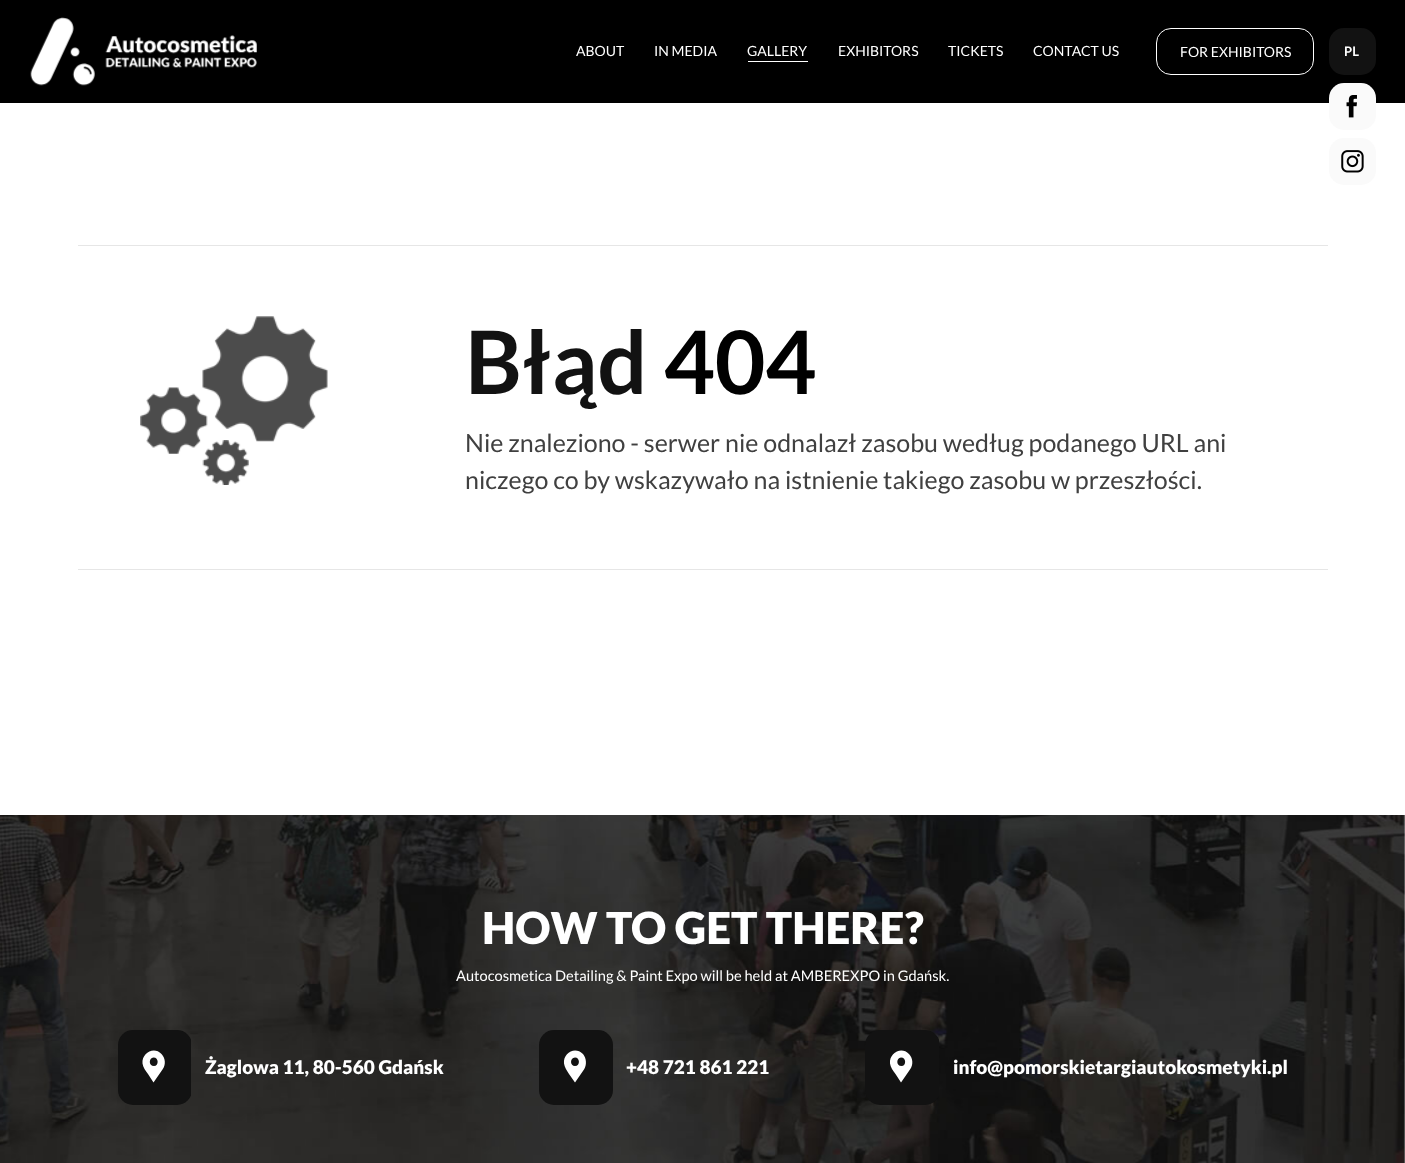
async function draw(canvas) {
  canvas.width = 1405
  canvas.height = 1163
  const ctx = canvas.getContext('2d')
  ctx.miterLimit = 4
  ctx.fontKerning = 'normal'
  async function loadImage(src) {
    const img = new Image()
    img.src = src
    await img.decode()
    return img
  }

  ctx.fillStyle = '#fff'
  ctx.fillRect(0, 0, 1405, 1163)
  ctx.fillStyle = '#000'
  ctx.fillRect(0, 0, 1405, 103)
  ctx.drawImage(await loadImage('image0.png'), 30, 17, 227, 69)
  ctx.font = '14px Lato'
  ctx.fillStyle = '#fff'
  ctx.fillText('ABOUT', 576, 56)
  ctx.fillText('IN MEDIA', 654, 56)
  ctx.fillText('GALLERY', 747, 56)
  ctx.fillRect(748, 61, 60, 1)
  ctx.fillText('EXHIBITORS', 838, 56)
  ctx.fillText('TICKETS', 948, 56)
  ctx.fillText('CONTACT US', 1033, 56)
  ctx.beginPath()
  ctx.roundRect(1156.5, 28.5, 157, 46, 14.5)
  ctx.strokeStyle = '#fff'
  ctx.stroke()
  ctx.fillText('FOR EXHIBITORS', 1180, 57)
  ctx.fillStyle = '#121212'
  ctx.beginPath()
  ctx.roundRect(1329, 28, 47, 47, 15)
  ctx.fill()
  ctx.font = 'bold 13px Lato'
  ctx.fillStyle = '#fff'
  ctx.fillText('PL', 1344, 56)
  ctx.fillStyle = '#fafafa'
  ctx.beginPath()
  ctx.roundRect(1329, 83, 47, 47, 15)
  ctx.fill()
  ctx.drawImage(await loadImage('image1.png'), 1346, 95, 11, 23)
  ctx.beginPath()
  ctx.roundRect(1329, 138, 47, 47, 15)
  ctx.fill()
  ctx.drawImage(await loadImage('image2.png'), 1341, 150, 23, 23)
  ctx.fillStyle = '#e6e6e6'
  ctx.fillRect(78, 245, 1250, 1)
  ctx.fillRect(78, 569, 1250, 1)
  ctx.drawImage(await loadImage('image4.png'), 202, 316, 126, 126)
  ctx.drawImage(await loadImage('image3.png'), 140, 387, 68, 67)
  ctx.drawImage(await loadImage('image5.png'), 202, 440, 47, 45)
  ctx.font = 'bold 87.5px Lato'
  ctx.fillStyle = '#121212'
  ctx.fillText('Błąd', 465, 394)
  ctx.fillStyle = '#000'
  ctx.fillText('404', 664, 394)
  ctx.font = '25px Lato'
  ctx.fillStyle = '#404040'
  ctx.fillText('Nie znaleziono - serwer nie odnalazł zasobu według podanego URL ani', 465, 452)
  ctx.fillText('niczego co by wskazywało na istnienie takiego zasobu w przeszłości.', 465, 489)
  ctx.drawImage(await loadImage('image6.png'), 0, 815, 1405, 348)
  ctx.font = '900 44px Lato'
  ctx.fillStyle = '#fff'
  ctx.fillText('HOW TO GET THERE?', 482, 944)
  ctx.font = '14.65px Lato'
  ctx.fillText('Autocosmetica Detailing & Paint Expo will be held at AMBEREXPO in Gdańsk.', 456, 981)
  ctx.save()
  ctx.beginPath()
  ctx.rect(118, 1030, 73, 75)
  ctx.clip()
  ctx.fillStyle = '#121212'
  ctx.beginPath()
  ctx.roundRect(118, 1030, 74, 75, 15)
  ctx.fill()
  ctx.restore()
  ctx.beginPath()
  ctx.moveTo(161.5, 1054)
  ctx.bezierCurveTo(154, 1046, 141.5, 1053, 142.5, 1063.5)
  ctx.bezierCurveTo(143, 1067.5, 145.5, 1070.5, 148, 1074)
  ctx.lineTo(153.5, 1082.5)
  ctx.lineTo(162.5, 1069.5)
  ctx.bezierCurveTo(166, 1065, 165.5, 1058, 161.5, 1054)
  ctx.closePath()
  ctx.moveTo(154, 1066)
  ctx.bezierCurveTo(148.5, 1066, 148.5, 1058, 153.5, 1057.5)
  ctx.bezierCurveTo(159, 1057.5, 159, 1066, 154, 1066)
  ctx.closePath()
  ctx.fill()
  ctx.font = '900 19px Lato'
  ctx.fillText('Żaglowa 11, 80-560 Gdańsk', 205, 1074)
  ctx.fillStyle = '#121212'
  ctx.beginPath()
  ctx.roundRect(539, 1030, 74, 75, 15)
  ctx.fill()
  ctx.fillStyle = '#fff'
  ctx.beginPath()
  ctx.moveTo(583, 1054)
  ctx.bezierCurveTo(575, 1046, 563, 1053, 564, 1063.5)
  ctx.bezierCurveTo(564.5, 1067.5, 567, 1070.5, 569, 1074)
  ctx.lineTo(575, 1082.5)
  ctx.lineTo(584, 1069.5)
  ctx.bezierCurveTo(587, 1065, 586.5, 1058, 583, 1054)
  ctx.closePath()
  ctx.moveTo(575, 1066)
  ctx.bezierCurveTo(570, 1066, 569.5, 1058, 575, 1057.5)
  ctx.bezierCurveTo(580, 1057.5, 580.5, 1066, 575, 1066)
  ctx.closePath()
  ctx.fill()
  ctx.fillText('+48 721 861 221', 626, 1074)
  ctx.save()
  ctx.beginPath()
  ctx.rect(865, 1030, 74, 75)
  ctx.clip()
  ctx.fillStyle = '#121212'
  ctx.beginPath()
  ctx.roundRect(865, 1030, 75, 75, 15)
  ctx.fill()
  ctx.restore()
  ctx.beginPath()
  ctx.moveTo(909, 1054)
  ctx.bezierCurveTo(901.5, 1046, 889, 1053, 890, 1063.5)
  ctx.bezierCurveTo(890.5, 1067.5, 893, 1070.5, 895.5, 1074)
  ctx.lineTo(901, 1082.5)
  ctx.lineTo(910, 1069.5)
  ctx.bezierCurveTo(913.5, 1065, 913, 1058, 909, 1054)
  ctx.closePath()
  ctx.moveTo(901.5, 1066)
  ctx.bezierCurveTo(896, 1066, 896, 1058, 901, 1057.5)
  ctx.bezierCurveTo(906.5, 1057.5, 906.5, 1066, 901.5, 1066)
  ctx.closePath()
  ctx.fill()
  ctx.fillText('info@pomorskietargiautokosmetyki.pl', 953, 1074)
}

draw(document.querySelector('canvas'))
